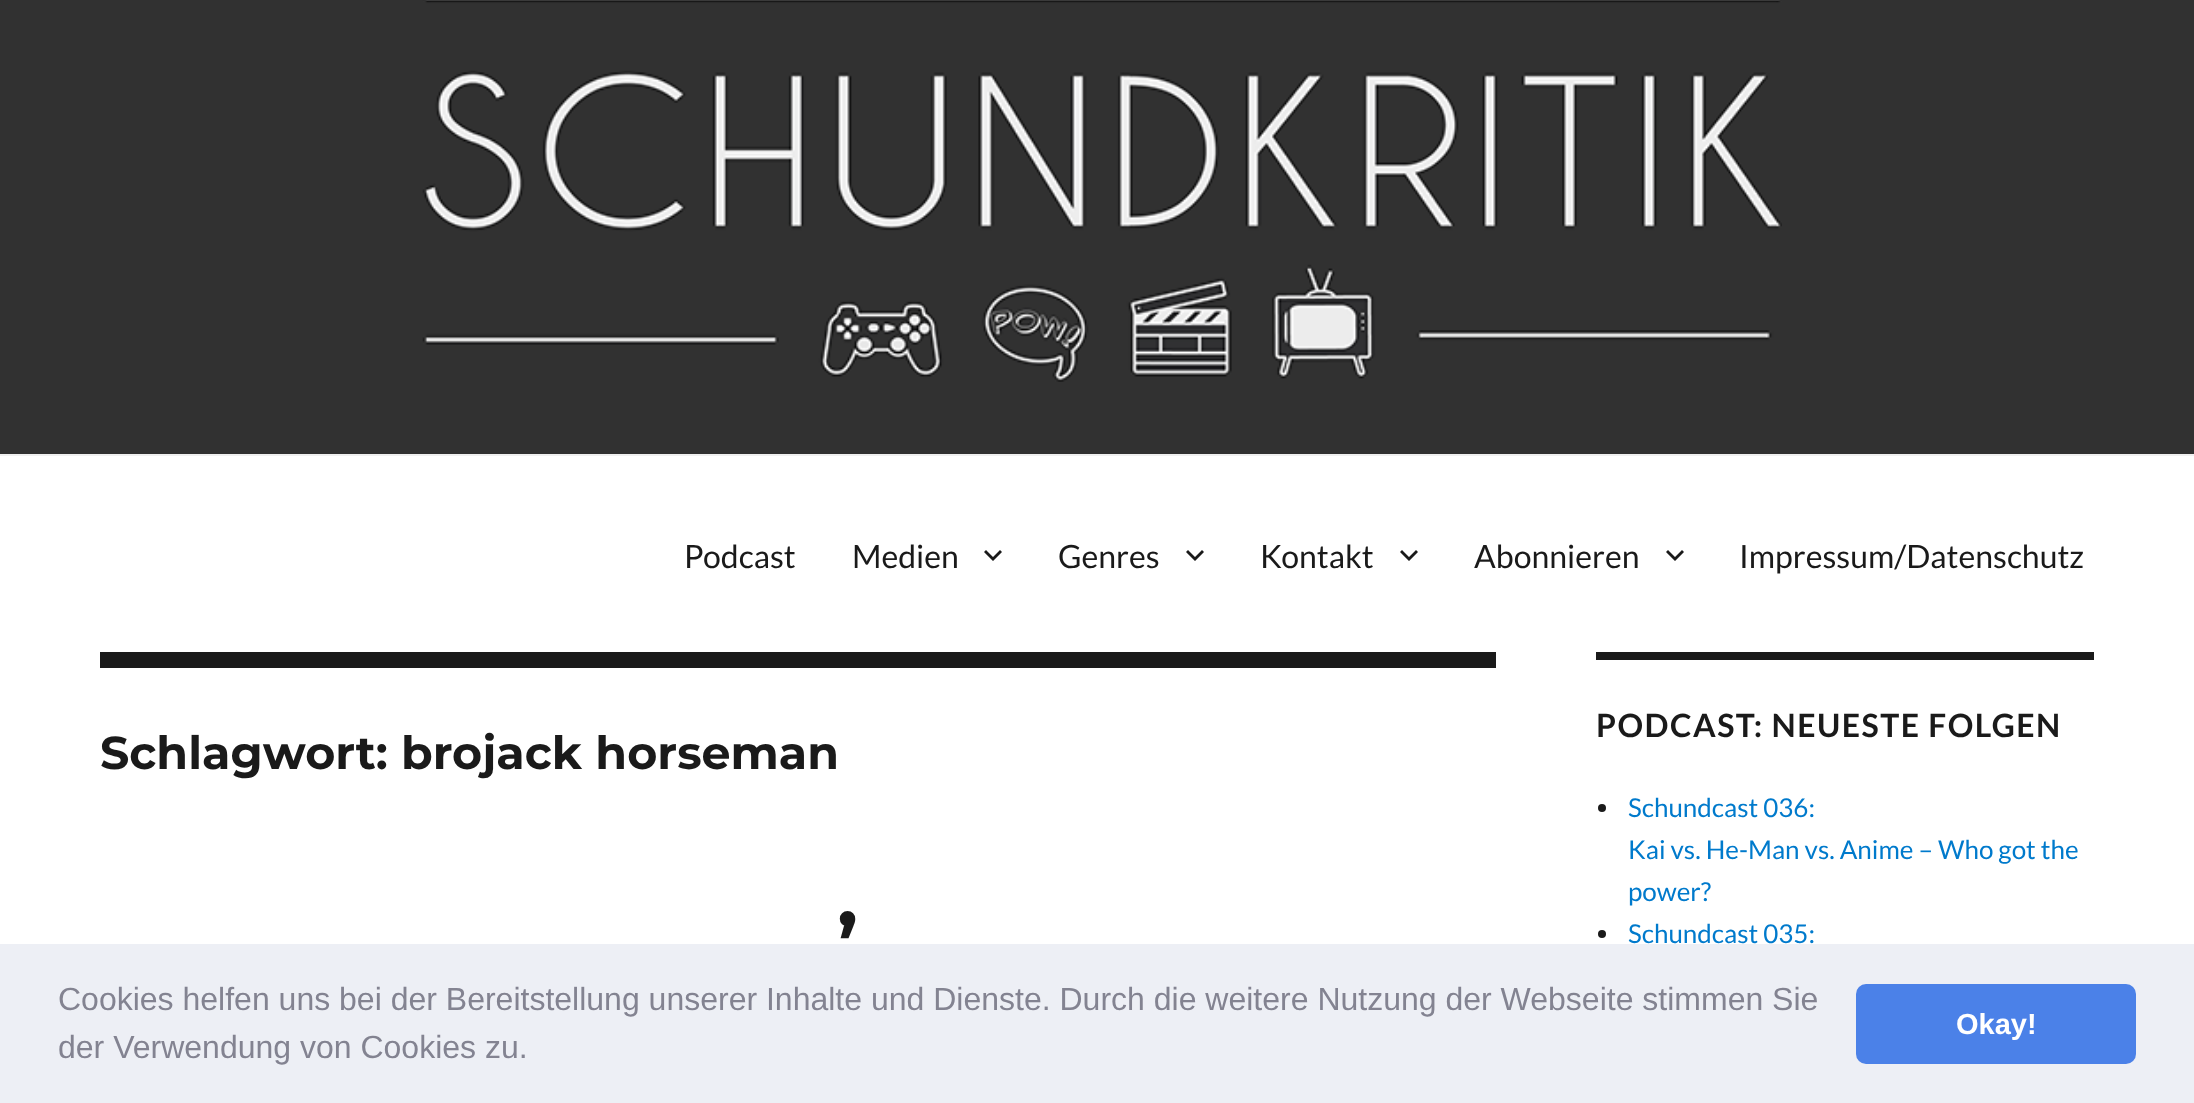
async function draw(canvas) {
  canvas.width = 2194
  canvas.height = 1103
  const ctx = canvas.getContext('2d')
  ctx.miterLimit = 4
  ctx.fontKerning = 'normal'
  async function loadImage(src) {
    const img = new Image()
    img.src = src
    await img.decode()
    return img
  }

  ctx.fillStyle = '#fff'
  ctx.fillRect(0, 0, 2194, 1103)
  ctx.fillStyle = '#313131'
  ctx.fillRect(0, 0, 2194, 454)
  ctx.fillStyle = '#f0f0f0'
  ctx.fillRect(0, 454, 2194, 2)
  ctx.drawImage(await loadImage('image0.png'), 422, 0, 1360, 382)
  ctx.font = '32px Lato'
  ctx.fillStyle = '#1a1a1a'
  ctx.fillText('Podcast', 684, 568)
  ctx.fillText('Medien', 852, 568)
  ctx.beginPath()
  ctx.moveTo(1000, 550)
  ctx.lineTo(1002, 552)
  ctx.lineTo(993, 561)
  ctx.lineTo(984, 552)
  ctx.lineTo(986, 550)
  ctx.lineTo(993, 557)
  ctx.closePath()
  ctx.fill()
  ctx.fillText('Genres', 1058, 568)
  ctx.beginPath()
  ctx.moveTo(1202, 550)
  ctx.lineTo(1204, 552)
  ctx.lineTo(1195, 561)
  ctx.lineTo(1186, 552)
  ctx.lineTo(1188, 550)
  ctx.lineTo(1195, 557)
  ctx.closePath()
  ctx.fill()
  ctx.fillText('Kontakt', 1260, 568)
  ctx.beginPath()
  ctx.moveTo(1416, 550)
  ctx.lineTo(1418, 552)
  ctx.lineTo(1409, 561)
  ctx.lineTo(1400, 552)
  ctx.lineTo(1402, 550)
  ctx.lineTo(1409, 557)
  ctx.closePath()
  ctx.fill()
  ctx.fillText('Abonnieren', 1474, 568)
  ctx.beginPath()
  ctx.moveTo(1682, 550)
  ctx.lineTo(1684, 552)
  ctx.lineTo(1675, 561)
  ctx.lineTo(1666, 552)
  ctx.lineTo(1668, 550)
  ctx.lineTo(1675, 557)
  ctx.closePath()
  ctx.fill()
  ctx.fillText('Impressum/Datenschutz', 1739, 568)
  ctx.fillRect(100, 652, 1396, 16)
  ctx.font = '100 46px Montserrat'
  ctx.fillText('Schlagwort: brojack horseman', 100, 769)
  ctx.font = '100 80px Montserrat'
  ctx.fillText('’', 837, 971)
  ctx.fillRect(1596, 652, 498, 8)
  ctx.letterSpacing = '1.5px'
  ctx.font = 'bold 32px Lato'
  ctx.fillText('PODCAST: NEUESTE FOLGEN', 1596, 737)
  ctx.beginPath()
  ctx.arc(1602, 808, 4, 0, 2 * Math.PI)
  ctx.fill()
  ctx.letterSpacing = '0px'
  ctx.font = '26px Lato'
  ctx.fillStyle = '#007acc'
  ctx.fillText('Schundcast 036:', 1628, 817)
  ctx.fillText('Kai vs. He-Man vs. Anime – Who got the', 1628, 859)
  ctx.fillText('power?', 1628, 901)
  ctx.fillStyle = '#1a1a1a'
  ctx.beginPath()
  ctx.arc(1602, 934, 4, 0, 2 * Math.PI)
  ctx.fill()
  ctx.fillStyle = '#007acc'
  ctx.fillText('Schundcast 035:', 1628, 943)
  ctx.fillStyle = '#edeff5'
  ctx.fillRect(0, 944, 2194, 159)
  ctx.font = '32px Liberation Sans'
  ctx.fillStyle = '#838391'
  ctx.fillText('Cookies helfen uns bei der Bereitstellung unserer Inhalte und Dienste. Durch die weitere Nutzung der Webseite stimmen Sie', 58, 1010)
  ctx.fillText('der Verwendung von Cookies zu.', 58, 1058)
  ctx.fillStyle = '#4b81e8'
  ctx.beginPath()
  ctx.roundRect(1856, 984, 280, 80, 10)
  ctx.fill()
  ctx.font = 'bold 29px Liberation Sans'
  ctx.fillStyle = '#fff'
  ctx.fillText('Okay!', 1956, 1034)
}

draw(document.querySelector('canvas'))
